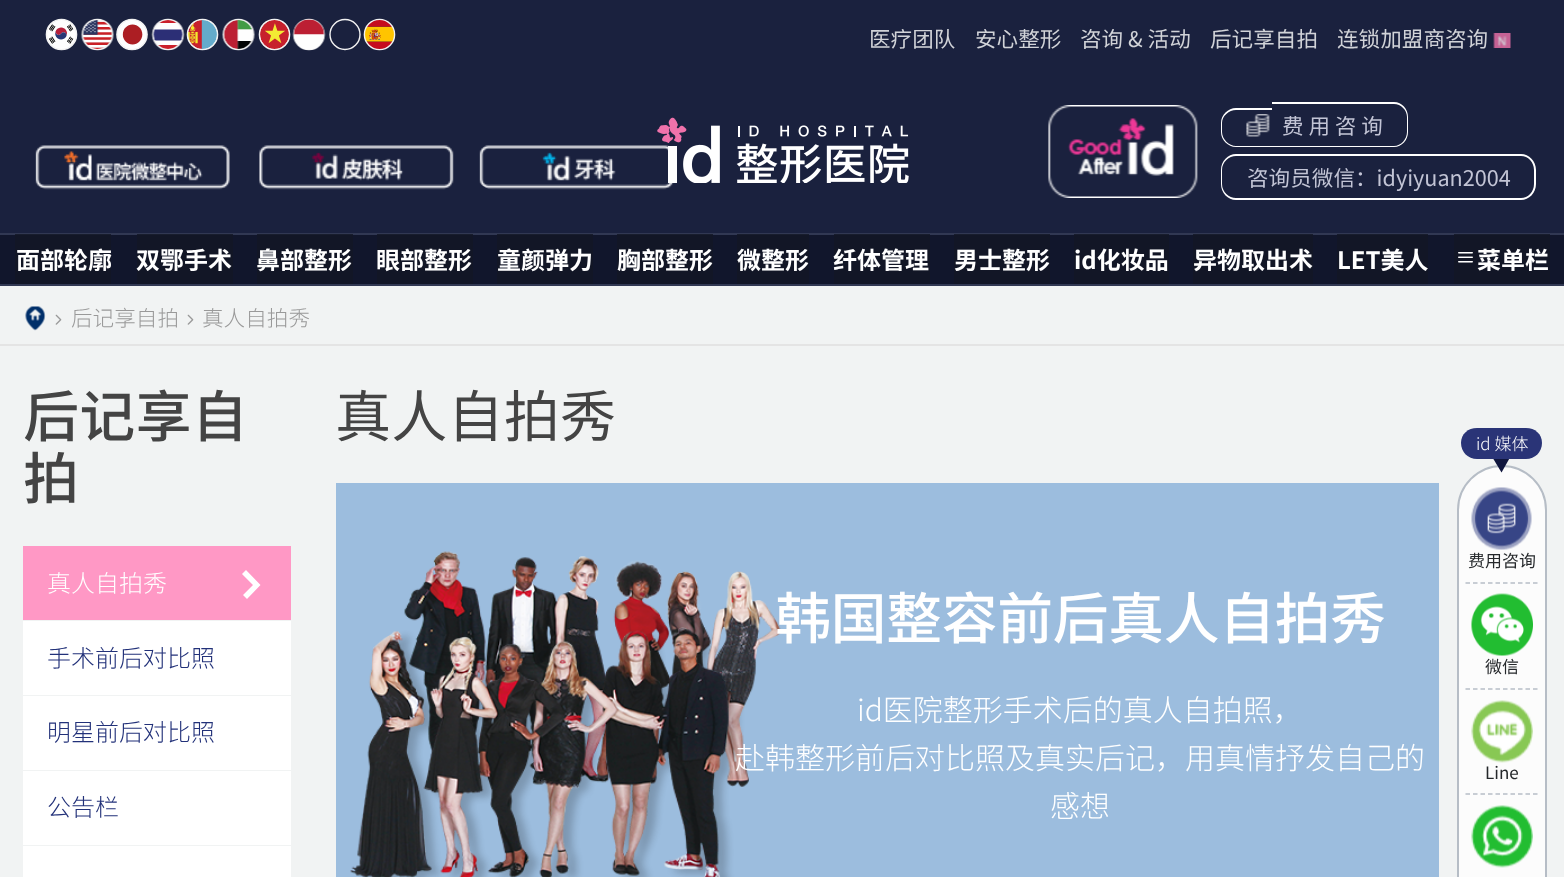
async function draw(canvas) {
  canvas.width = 1564
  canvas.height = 877
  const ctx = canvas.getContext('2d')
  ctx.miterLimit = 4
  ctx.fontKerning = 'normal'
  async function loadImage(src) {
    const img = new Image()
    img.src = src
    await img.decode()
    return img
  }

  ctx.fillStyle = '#f1f3f3'
  ctx.fillRect(0, 0, 1564, 877)
  ctx.fillStyle = '#1a213e'
  ctx.fillRect(0, 0, 1564, 233)
  ctx.drawImage(await loadImage('image0.png'), 45, 18, 33, 33)
  ctx.drawImage(await loadImage('image1.png'), 81, 18, 33, 33)
  ctx.drawImage(await loadImage('image2.png'), 116, 18, 32, 33)
  ctx.drawImage(await loadImage('image3.png'), 151, 18, 34, 33)
  ctx.drawImage(await loadImage('image4.png'), 186, 18, 33, 33)
  ctx.drawImage(await loadImage('image5.png'), 222, 18, 33, 33)
  ctx.drawImage(await loadImage('image6.png'), 258, 18, 33, 33)
  ctx.drawImage(await loadImage('image7.png'), 292, 18, 34, 33)
  ctx.beginPath()
  ctx.arc(345, 34.5, 15, 0, 2 * Math.PI)
  ctx.strokeStyle = '#f2f2f2'
  ctx.lineWidth = 1.4
  ctx.stroke()
  ctx.drawImage(await loadImage('image8.png'), 363, 18, 33, 33)
  ctx.font = '21.6px Noto Sans SC'
  ctx.fillStyle = '#d1d3d8'
  ctx.fillText('医疗团队', 869, 47)
  ctx.fillText('安心整形', 975, 47)
  ctx.fillText('咨询 & 活动', 1080, 47)
  ctx.fillText('后记享自拍', 1210, 47)
  ctx.fillText('连锁加盟商咨询', 1337, 47)
  ctx.drawImage(await loadImage('image9.png'), 1493, 33, 18, 15)
  ctx.drawImage(await loadImage('image10.png'), 35, 145, 195, 45)
  ctx.drawImage(await loadImage('image11.png'), 259, 145, 195, 45)
  ctx.drawImage(await loadImage('image12.png'), 479, 145, 195, 45)
  ctx.drawImage(await loadImage('image13.png'), 657, 117, 252, 66)
  ctx.drawImage(await loadImage('image14.png'), 1048, 105, 150, 93)
  ctx.fillStyle = '#fff'
  ctx.beginPath()
  ctx.moveTo(1236, 108)
  ctx.lineTo(1272, 108)
  ctx.lineTo(1272, 147)
  ctx.lineTo(1236, 147)
  ctx.bezierCurveTo(1228, 147, 1221, 140, 1221, 132)
  ctx.lineTo(1221, 123)
  ctx.bezierCurveTo(1221, 115, 1228, 108, 1236, 108)
  ctx.closePath()
  ctx.moveTo(1236, 110)
  ctx.lineTo(1272, 110)
  ctx.lineTo(1272, 146)
  ctx.lineTo(1236, 146)
  ctx.bezierCurveTo(1229, 146, 1222, 139, 1222, 132)
  ctx.lineTo(1222, 123)
  ctx.bezierCurveTo(1222, 116, 1229, 110, 1236, 110)
  ctx.closePath()
  ctx.fill('evenodd')
  ctx.drawImage(await loadImage('image15.png'), 1246, 114, 24, 23)
  ctx.beginPath()
  ctx.moveTo(1272, 102)
  ctx.lineTo(1394, 102)
  ctx.bezierCurveTo(1402, 102, 1408, 109, 1408, 117)
  ctx.lineTo(1408, 132)
  ctx.bezierCurveTo(1408, 140, 1402, 147, 1394, 147)
  ctx.lineTo(1272, 147)
  ctx.closePath()
  ctx.moveTo(1272, 104)
  ctx.lineTo(1394, 104)
  ctx.bezierCurveTo(1401, 104, 1407, 110, 1407, 117)
  ctx.lineTo(1407, 132)
  ctx.bezierCurveTo(1407, 139, 1401, 146, 1394, 146)
  ctx.lineTo(1272, 146)
  ctx.closePath()
  ctx.fill('evenodd')
  ctx.fillStyle = '#c2c4d5'
  ctx.fillText('费 用 咨 询', 1282, 134)
  ctx.fillStyle = '#fff'
  ctx.beginPath()
  ctx.moveTo(1236, 154)
  ctx.lineTo(1376, 154)
  ctx.lineTo(1376, 200)
  ctx.lineTo(1236, 200)
  ctx.bezierCurveTo(1228, 200, 1221, 193, 1221, 184)
  ctx.lineTo(1221, 170)
  ctx.bezierCurveTo(1221, 161, 1228, 154, 1236, 154)
  ctx.closePath()
  ctx.moveTo(1236, 156)
  ctx.lineTo(1376, 156)
  ctx.lineTo(1376, 198)
  ctx.lineTo(1236, 198)
  ctx.bezierCurveTo(1229, 198, 1222, 192, 1222, 184)
  ctx.lineTo(1222, 170)
  ctx.bezierCurveTo(1222, 162, 1229, 156, 1236, 156)
  ctx.closePath()
  ctx.fill('evenodd')
  ctx.beginPath()
  ctx.moveTo(1376, 154)
  ctx.lineTo(1521, 154)
  ctx.bezierCurveTo(1529, 154, 1536, 161, 1536, 170)
  ctx.lineTo(1536, 184)
  ctx.bezierCurveTo(1536, 193, 1529, 200, 1521, 200)
  ctx.lineTo(1376, 200)
  ctx.closePath()
  ctx.moveTo(1376, 156)
  ctx.lineTo(1521, 156)
  ctx.bezierCurveTo(1528, 156, 1534, 162, 1534, 170)
  ctx.lineTo(1534, 184)
  ctx.bezierCurveTo(1534, 192, 1528, 198, 1521, 198)
  ctx.lineTo(1376, 198)
  ctx.closePath()
  ctx.fill('evenodd')
  ctx.fillStyle = '#c2c4d5'
  ctx.fillText('咨询员微信：idyiyuan2004', 1247, 186)
  ctx.fillStyle = '#11162c'
  ctx.fillRect(0, 235, 1564, 49)
  ctx.fillStyle = '#121626'
  ctx.fillRect(1454, 235, 96, 49)
  ctx.fillRect(1337, 235, 91, 49)
  ctx.fillRect(1193, 235, 120, 49)
  ctx.fillRect(1074, 235, 95, 49)
  ctx.fillRect(954, 235, 96, 49)
  ctx.fillRect(834, 235, 96, 49)
  ctx.fillRect(737, 235, 72, 49)
  ctx.fillRect(617, 235, 96, 49)
  ctx.fillRect(497, 235, 96, 49)
  ctx.fillRect(377, 235, 96, 49)
  ctx.fillRect(257, 235, 96, 49)
  ctx.fillRect(137, 235, 96, 49)
  ctx.fillRect(15, 235, 96, 49)
  ctx.fillStyle = '#313853'
  ctx.fillRect(0, 233, 1564, 2)
  ctx.fillStyle = '#181d2d'
  ctx.fillRect(1454, 234, 96, 1)
  ctx.fillRect(1337, 234, 91, 1)
  ctx.fillRect(1193, 234, 120, 1)
  ctx.fillRect(1074, 234, 95, 1)
  ctx.fillRect(954, 234, 96, 1)
  ctx.fillRect(834, 234, 96, 1)
  ctx.fillRect(737, 234, 72, 1)
  ctx.fillRect(617, 234, 96, 1)
  ctx.fillRect(497, 234, 96, 1)
  ctx.fillRect(377, 234, 96, 1)
  ctx.fillRect(257, 234, 96, 1)
  ctx.fillRect(137, 234, 96, 1)
  ctx.fillRect(15, 234, 96, 1)
  ctx.fillStyle = '#313853'
  ctx.fillRect(0, 284, 1564, 2)
  ctx.font = 'bold 24px Noto Sans SC'
  ctx.fillStyle = '#fff'
  ctx.fillText('面部轮廓', 16, 269)
  ctx.fillText('双鄂手术', 136, 269)
  ctx.fillText('鼻部整形', 256, 269)
  ctx.fillText('眼部整形', 376, 269)
  ctx.fillText('童颜弹力', 497, 269)
  ctx.fillText('胸部整形', 617, 269)
  ctx.fillText('微整形', 737, 269)
  ctx.fillText('纤体管理', 833, 269)
  ctx.fillText('男士整形', 954, 269)
  ctx.fillText('id化妆品', 1074, 269)
  ctx.fillText('异物取出术', 1193, 269)
  ctx.fillText('LET美人', 1337, 269)
  ctx.drawImage(await loadImage('image16.png'), 1458, 252, 15, 11)
  ctx.fillText('菜单栏', 1477, 269)
  ctx.fillStyle = '#e4e4e4'
  ctx.fillRect(0, 344, 1564, 2)
  ctx.drawImage(await loadImage('image17.png'), 25, 306, 21, 25)
  ctx.drawImage(await loadImage('image18.png'), 55, 314, 7, 11)
  ctx.font = '300 21.6px Noto Sans SC'
  ctx.fillStyle = '#999'
  ctx.fillText('后记享自拍', 71, 326)
  ctx.drawImage(await loadImage('image18.png'), 187, 314, 7, 11)
  ctx.fillText('真人自拍秀', 202, 326)
  ctx.font = '500 56.25px Noto Sans SC'
  ctx.fillStyle = '#444'
  ctx.fillText('后记享自', 23, 437)
  ctx.fillText('拍', 23, 499)
  ctx.fillStyle = '#ff98c5'
  ctx.fillRect(23, 546, 268, 74)
  ctx.font = '300 24px Noto Sans SC'
  ctx.fillStyle = '#fff'
  ctx.fillText('真人自拍秀', 47, 592)
  ctx.beginPath()
  ctx.moveTo(246, 570)
  ctx.lineTo(242, 574)
  ctx.lineTo(253, 585)
  ctx.lineTo(243, 595)
  ctx.lineTo(247, 599)
  ctx.lineTo(260.5, 585)
  ctx.closePath()
  ctx.fill()
  ctx.fillRect(23, 621, 268, 74)
  ctx.fillStyle = '#223179'
  ctx.fillText('手术前后对比照', 47, 667)
  ctx.fillStyle = '#fff'
  ctx.fillRect(23, 696, 268, 74)
  ctx.fillStyle = '#223179'
  ctx.fillText('明星前后对比照', 47, 741)
  ctx.fillStyle = '#fff'
  ctx.fillRect(23, 771, 268, 74)
  ctx.fillStyle = '#223179'
  ctx.fillText('公告栏', 47, 816)
  ctx.fillStyle = '#fff'
  ctx.fillRect(23, 846, 268, 31)
  ctx.font = '56.25px Noto Sans SC'
  ctx.fillStyle = '#444'
  ctx.fillText('真人自拍秀', 335, 437)
  ctx.fillStyle = '#9cbdde'
  ctx.fillRect(336, 483, 1103, 394)
  ctx.drawImage(await loadImage('image19.png'), 350, 551, 431, 326)
  ctx.letterSpacing = '-0.75px'
  ctx.font = '500 56.25px Noto Sans SC'
  ctx.fillStyle = '#fff'
  ctx.fillText('韩国整容前后真人自拍秀', 775, 639)
  ctx.letterSpacing = '0px'
  ctx.font = '300 30px Noto Sans SC'
  ctx.fillText('id医院整形手术后的真人自拍照，', 857, 721)
  ctx.fillText('赴韩整形前后对比照及真实后记，用真情抒发自己的', 735, 769)
  ctx.fillText('感想', 1050, 817)
  ctx.fillStyle = '#fcfcfc'
  ctx.beginPath()
  ctx.roundRect(1458, 466, 88, 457, 44)
  ctx.fill()
  ctx.strokeStyle = '#b6bdc6'
  ctx.lineWidth = 2
  ctx.stroke()
  ctx.fillStyle = '#10163e'
  ctx.beginPath()
  ctx.moveTo(1501.5, 472.5)
  ctx.lineTo(1492.5, 457.5)
  ctx.lineTo(1510, 457.5)
  ctx.closePath()
  ctx.fill()
  ctx.fillStyle = '#2a3477'
  ctx.beginPath()
  ctx.moveTo(1526, 459)
  ctx.lineTo(1477, 459)
  ctx.bezierCurveTo(1468, 459, 1461, 452, 1461, 443)
  ctx.bezierCurveTo(1461, 434, 1468, 428, 1477, 428)
  ctx.lineTo(1526, 428)
  ctx.bezierCurveTo(1535, 428, 1542, 434, 1542, 443)
  ctx.bezierCurveTo(1542, 452, 1535, 459, 1526, 459)
  ctx.closePath()
  ctx.fill()
  ctx.font = '300 17px Noto Sans SC'
  ctx.fillStyle = '#fff'
  ctx.fillText('id 媒体', 1476, 450)
  ctx.beginPath()
  ctx.moveTo(1465.5, 583)
  ctx.lineTo(1537.5, 583)
  ctx.lineWidth = 1.5
  ctx.setLineDash([4.5, 3])
  ctx.stroke()
  ctx.drawImage(await loadImage('image20.png'), 1471, 487, 61, 63)
  ctx.font = '17px Noto Sans SC'
  ctx.fillStyle = '#25282b'
  ctx.fillText('费用咨询', 1468, 567)
  ctx.beginPath()
  ctx.moveTo(1465.5, 689)
  ctx.lineTo(1537.5, 689)
  ctx.stroke()
  ctx.drawImage(await loadImage('image21.png'), 1471, 593, 62, 63)
  ctx.fillText('微信', 1485, 673)
  ctx.beginPath()
  ctx.moveTo(1465.5, 794)
  ctx.lineTo(1537.5, 794)
  ctx.stroke()
  ctx.drawImage(await loadImage('image22.png'), 1471, 700, 62, 63)
  ctx.fillText('Line', 1485, 779)
  ctx.drawImage(await loadImage('image23.png'), 1471, 805, 62, 63)
}

draw(document.querySelector('canvas'))
